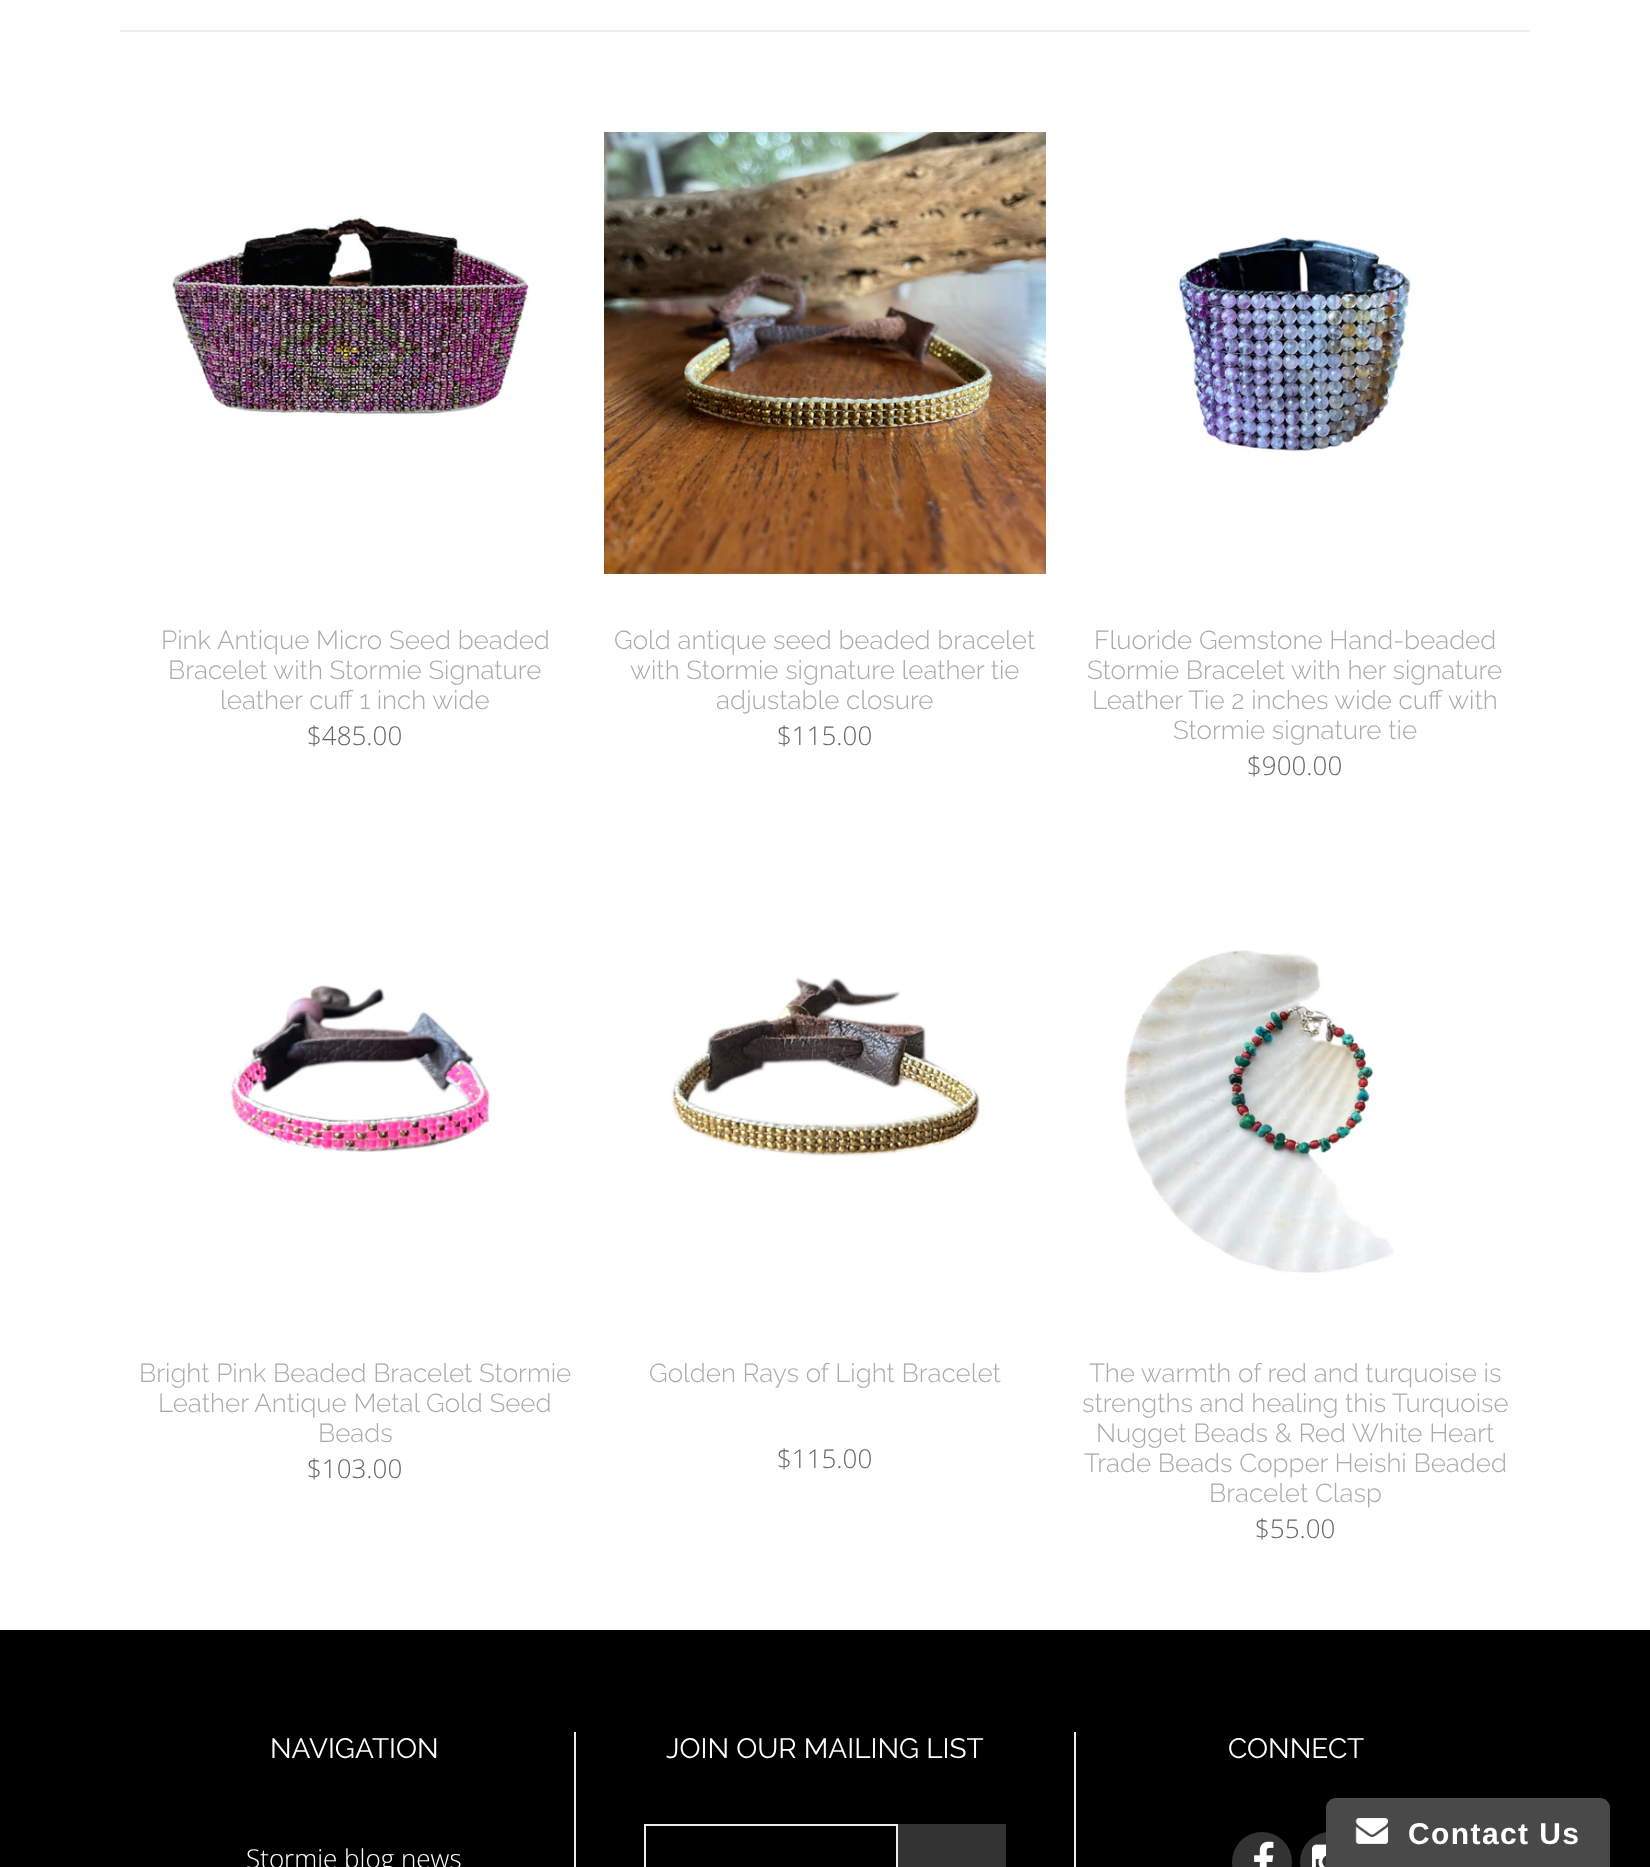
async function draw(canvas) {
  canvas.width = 1650
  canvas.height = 1867
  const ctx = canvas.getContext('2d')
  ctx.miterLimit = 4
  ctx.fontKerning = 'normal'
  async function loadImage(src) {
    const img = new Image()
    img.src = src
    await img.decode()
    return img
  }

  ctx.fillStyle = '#fff'
  ctx.fillRect(0, 0, 1650, 1867)
  ctx.fillStyle = '#eee'
  ctx.fillRect(120, 30, 1410, 2)
  ctx.drawImage(await loadImage('image0.png'), 171, 214, 359, 202)
  ctx.font = '300 26px Raleway'
  ctx.fillStyle = '#aaa'
  ctx.fillText('Pink Antique Micro Seed beaded', 161, 649)
  ctx.fillText('Bracelet with Stormie Signature', 168, 679)
  ctx.fillText('leather cuff 1 inch wide', 220, 709)
  ctx.font = '300 26px Open Sans'
  ctx.fillStyle = '#666'
  ctx.fillText('$485.00', 307, 745)
  ctx.drawImage(await loadImage('image1.png'), 604, 132, 442, 442)
  ctx.font = '300 26px Raleway'
  ctx.fillStyle = '#aaa'
  ctx.fillText('Gold antique seed beaded bracelet', 614, 649)
  ctx.fillText('with Stormie signature leather tie', 630, 679)
  ctx.fillText('adjustable closure', 716, 709)
  ctx.font = '300 26px Open Sans'
  ctx.fillStyle = '#666'
  ctx.fillText('$115.00', 777, 745)
  ctx.drawImage(await loadImage('image2.png'), 1177, 235, 236, 218)
  ctx.font = '300 26px Raleway'
  ctx.fillStyle = '#aaa'
  ctx.fillText('Fluoride Gemstone Hand-beaded', 1094, 649)
  ctx.fillText('Stormie Bracelet with her signature', 1087, 679)
  ctx.fillText('Leather Tie 2 inches wide cuff with', 1092, 709)
  ctx.fillText('Stormie signature tie', 1173, 739)
  ctx.font = '300 26px Open Sans'
  ctx.fillStyle = '#666'
  ctx.fillText('$900.00', 1247, 775)
  ctx.drawImage(await loadImage('image3.png'), 230, 985, 265, 167)
  ctx.font = '300 26px Raleway'
  ctx.fillStyle = '#aaa'
  ctx.fillText('Bright Pink Beaded Bracelet Stormie', 139, 1382)
  ctx.fillText('Leather Antique Metal Gold Seed', 158, 1412)
  ctx.fillText('Beads', 318, 1442)
  ctx.font = '300 26px Open Sans'
  ctx.fillStyle = '#666'
  ctx.fillText('$103.00', 307, 1478)
  ctx.drawImage(await loadImage('image4.png'), 670, 976, 310, 181)
  ctx.font = '300 26px Raleway'
  ctx.fillStyle = '#aaa'
  ctx.fillText('Golden Rays of Light Bracelet', 649, 1382)
  ctx.font = '300 26px Open Sans'
  ctx.fillStyle = '#666'
  ctx.fillText('$115.00', 777, 1468)
  ctx.drawImage(await loadImage('image5.png'), 1124, 950, 270, 323)
  ctx.font = '300 26px Raleway'
  ctx.fillStyle = '#aaa'
  ctx.fillText('The warmth of red and turquoise is', 1089, 1382)
  ctx.fillText('strengths and healing this Turquoise', 1082, 1412)
  ctx.fillText('Nugget Beads & Red White Heart', 1096, 1442)
  ctx.fillText('Trade Beads Copper Heishi Beaded', 1084, 1472)
  ctx.fillText('Bracelet Clasp', 1209, 1502)
  ctx.font = '300 26px Open Sans'
  ctx.fillStyle = '#666'
  ctx.fillText('$55.00', 1255, 1538)
  ctx.fillStyle = '#000'
  ctx.fillRect(0, 1630, 1650, 237)
  ctx.fillStyle = '#eee'
  ctx.fillRect(574, 1732, 2, 135)
  ctx.font = '28px Raleway'
  ctx.fillStyle = '#fff'
  ctx.fillText('NAVIGATION', 270, 1758)
  ctx.font = '300 26px Open Sans'
  ctx.fillText('Stormie blog news', 246, 1868)
  ctx.font = '28px Raleway'
  ctx.fillText('JOIN OUR MAILING LIST', 666, 1758)
  ctx.strokeStyle = '#eee'
  ctx.lineWidth = 2
  ctx.strokeRect(645, 1825, 252, 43)
  ctx.fillStyle = '#333'
  ctx.fillRect(898, 1824, 108, 43)
  ctx.fillStyle = '#eee'
  ctx.fillRect(1074, 1732, 2, 135)
  ctx.fillStyle = '#fff'
  ctx.fillText('CONNECT', 1228, 1758)
  ctx.fillStyle = '#333'
  ctx.beginPath()
  ctx.arc(1262, 1862, 30, 0, 2 * Math.PI)
  ctx.fill()
  ctx.drawImage(await loadImage('image6.png'), 1254, 1841, 20, 26)
  ctx.beginPath()
  ctx.arc(1330, 1862, 30, 0, 2 * Math.PI)
  ctx.fill()
  ctx.drawImage(await loadImage('image7.png'), 1312, 1844, 14, 23)
  ctx.fillStyle = '#494949'
  ctx.beginPath()
  ctx.moveTo(1336, 1798)
  ctx.lineTo(1600, 1798)
  ctx.bezierCurveTo(1605.5, 1798, 1610, 1802.5, 1610, 1808)
  ctx.lineTo(1610, 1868)
  ctx.lineTo(1326, 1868)
  ctx.lineTo(1326, 1808)
  ctx.bezierCurveTo(1326, 1802.5, 1330.5, 1798, 1336, 1798)
  ctx.closePath()
  ctx.fill()
  ctx.drawImage(await loadImage('image8.png'), 1355, 1818, 34, 26)
  ctx.letterSpacing = '1.4px'
  ctx.font = 'bold 30px Liberation Sans'
  ctx.fillStyle = '#fff'
  ctx.fillText('Contact Us', 1408, 1844)
}

draw(document.querySelector('canvas'))
